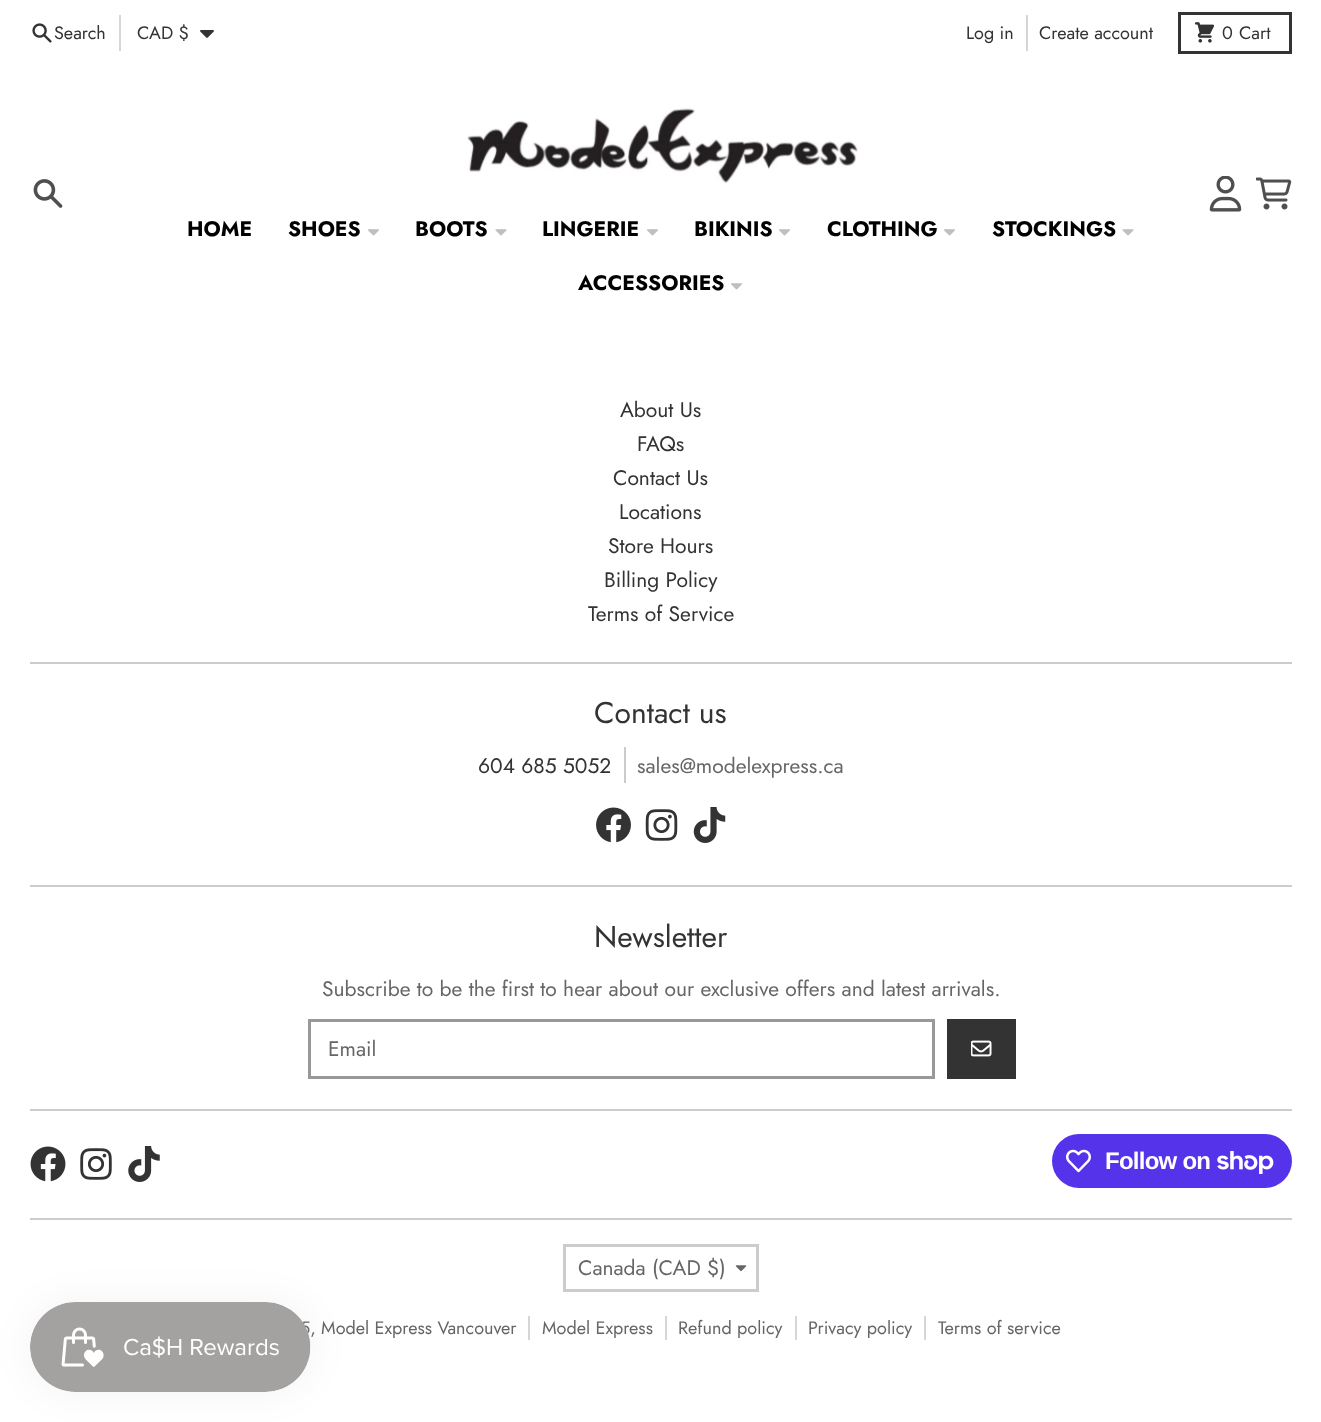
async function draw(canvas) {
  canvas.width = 1321
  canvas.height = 1422
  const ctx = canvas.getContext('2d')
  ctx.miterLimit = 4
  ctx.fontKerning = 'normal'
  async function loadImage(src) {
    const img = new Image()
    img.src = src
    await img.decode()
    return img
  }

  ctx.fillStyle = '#fff'
  ctx.fillRect(0, 0, 1321, 1422)
  ctx.drawImage(await loadImage('image0.png'), 32, 23, 20, 20)
  ctx.font = '18px Jost'
  ctx.fillStyle = '#333'
  ctx.fillText('Search', 54, 39)
  ctx.fillStyle = '#d6d6d6'
  ctx.fillRect(119, 15, 2, 36)
  ctx.fillStyle = '#333'
  ctx.fillText('CAD $', 137, 39)
  ctx.drawImage(await loadImage('image1.png'), 200, 30, 14, 8)
  ctx.fillText('Log in', 966, 39)
  ctx.fillStyle = '#d6d6d6'
  ctx.fillRect(1026, 15, 2, 36)
  ctx.fillStyle = '#333'
  ctx.fillText('Create account', 1039, 39)
  ctx.strokeStyle = '#333'
  ctx.lineWidth = 3
  ctx.strokeRect(1179.5, 13.5, 111, 39)
  ctx.drawImage(await loadImage('image2.png'), 1194, 22, 21, 21)
  ctx.fillText('0', 1222, 39)
  ctx.fillText('Cart', 1239, 39)
  ctx.drawImage(await loadImage('image3.png'), 33, 179, 30, 29)
  ctx.drawImage(await loadImage('image4.png'), 1209, 176, 33, 36)
  ctx.drawImage(await loadImage('image5.png'), 1256, 177, 36, 33)
  ctx.drawImage(await loadImage('image6.png'), 467, 108, 391, 76)
  ctx.font = 'bold 21px Jost'
  ctx.fillStyle = '#000'
  ctx.fillText('HOME', 187, 236)
  ctx.fillText('SHOES', 288, 236)
  ctx.drawImage(await loadImage('image7.png'), 368, 229, 11, 7)
  ctx.fillText('BOOTS', 415, 236)
  ctx.drawImage(await loadImage('image8.png'), 495, 229, 12, 7)
  ctx.fillText('LINGERIE', 542, 236)
  ctx.drawImage(await loadImage('image7.png'), 647, 229, 11, 7)
  ctx.fillText('BIKINIS', 694, 236)
  ctx.drawImage(await loadImage('image7.png'), 779, 229, 11, 7)
  ctx.fillText('CLOTHING', 827, 236)
  ctx.drawImage(await loadImage('image7.png'), 944, 229, 11, 7)
  ctx.fillText('STOCKINGS', 992, 236)
  ctx.drawImage(await loadImage('image8.png'), 1122, 229, 12, 7)
  ctx.fillText('ACCESSORIES', 578, 290)
  ctx.drawImage(await loadImage('image7.png'), 731, 283, 11, 7)
  ctx.fillStyle = '#0000000d'
  ctx.filter = 'blur(19px)'
  ctx.beginPath()
  ctx.roundRect(30, 1302, 281, 90, 45)
  ctx.fill()
  ctx.filter = 'none'
  ctx.font = '18px Jost'
  ctx.fillStyle = '#666'
  ctx.fillText('5, Model Express Vancouver', 300, 1334)
  ctx.drawImage(await loadImage('image9.png'), 30, 1302, 281, 90)
  ctx.font = '21px Jost'
  ctx.fillStyle = '#333'
  ctx.fillText('About Us', 620, 417)
  ctx.fillText('FAQs', 637, 451)
  ctx.fillText('Contact Us', 613, 485)
  ctx.fillText('Locations', 619, 519)
  ctx.fillText('Store Hours', 608, 553)
  ctx.fillText('Billing Policy', 604, 587)
  ctx.fillText('Terms of Service', 588, 621)
  ctx.fillStyle = '#ccc'
  ctx.fillRect(30, 662, 1262, 2)
  ctx.font = '30px Jost'
  ctx.fillStyle = '#333'
  ctx.fillText('Contact us', 594, 723)
  ctx.font = '21px Jost'
  ctx.fillText('604 685 5052', 478, 773)
  ctx.fillStyle = '#ccc'
  ctx.fillRect(624, 747, 2, 36)
  ctx.fillStyle = '#666'
  ctx.fillText('sales@modelexpress.ca', 637, 773)
  ctx.drawImage(await loadImage('image10.png'), 596, 807, 35, 36)
  ctx.drawImage(await loadImage('image11.png'), 645, 809, 33, 32)
  ctx.drawImage(await loadImage('image12.png'), 693, 807, 33, 36)
  ctx.fillStyle = '#ccc'
  ctx.fillRect(30, 885, 1262, 2)
  ctx.font = '30px Jost'
  ctx.fillStyle = '#333'
  ctx.fillText('Newsletter', 594, 947)
  ctx.font = '21px Jost'
  ctx.fillStyle = '#666'
  ctx.fillText('Subscribe to be the first to hear about our exclusive offers and latest arrivals.', 322, 996)
  ctx.strokeStyle = '#999'
  ctx.strokeRect(309.5, 1020.5, 624, 57)
  ctx.fillText('Email', 328, 1056)
  ctx.fillStyle = '#333'
  ctx.fillRect(947, 1019, 69, 60)
  ctx.drawImage(await loadImage('image13.png'), 971, 1040, 21, 17)
  ctx.fillStyle = '#ccc'
  ctx.fillRect(30, 1109, 1262, 2)
  ctx.drawImage(await loadImage('image14.png'), 30, 1146, 36, 36)
  ctx.drawImage(await loadImage('image15.png'), 80, 1148, 32, 32)
  ctx.drawImage(await loadImage('image16.png'), 128, 1146, 32, 36)
  ctx.fillStyle = '#5433eb'
  ctx.beginPath()
  ctx.roundRect(1052, 1134, 240, 54, 27)
  ctx.fill()
  ctx.drawImage(await loadImage('image17.png'), 1066, 1149, 25, 24)
  ctx.letterSpacing = '-0.75px'
  ctx.font = 'bold 24px Liberation Sans'
  ctx.fillStyle = '#fff'
  ctx.fillText('Follow on', 1105, 1169)
  ctx.drawImage(await loadImage('image18.png'), 1217, 1151, 57, 23)
  ctx.fillStyle = '#ccc'
  ctx.fillRect(30, 1218, 1262, 2)
  ctx.strokeStyle = '#ccc'
  ctx.strokeRect(564.5, 1245.5, 193, 45)
  ctx.letterSpacing = '0px'
  ctx.font = '21px Jost'
  ctx.fillStyle = '#666'
  ctx.fillText('Canada (CAD $)', 578, 1275)
  ctx.drawImage(await loadImage('image19.png'), 735, 1265, 12, 7)
  ctx.fillStyle = '#d6d6d6'
  ctx.fillRect(528, 1316, 2, 24)
  ctx.font = '18px Jost'
  ctx.fillStyle = '#666'
  ctx.fillText('Model Express', 542, 1334)
  ctx.fillStyle = '#d6d6d6'
  ctx.fillRect(665, 1316, 2, 24)
  ctx.fillStyle = '#666'
  ctx.fillText('Refund policy', 678, 1334)
  ctx.fillStyle = '#d6d6d6'
  ctx.fillRect(795, 1316, 2, 24)
  ctx.fillStyle = '#666'
  ctx.fillText('Privacy policy', 808, 1334)
  ctx.fillStyle = '#d6d6d6'
  ctx.fillRect(924, 1316, 2, 24)
  ctx.fillStyle = '#666'
  ctx.fillText('Terms of service', 938, 1334)
}

draw(document.querySelector('canvas'))
